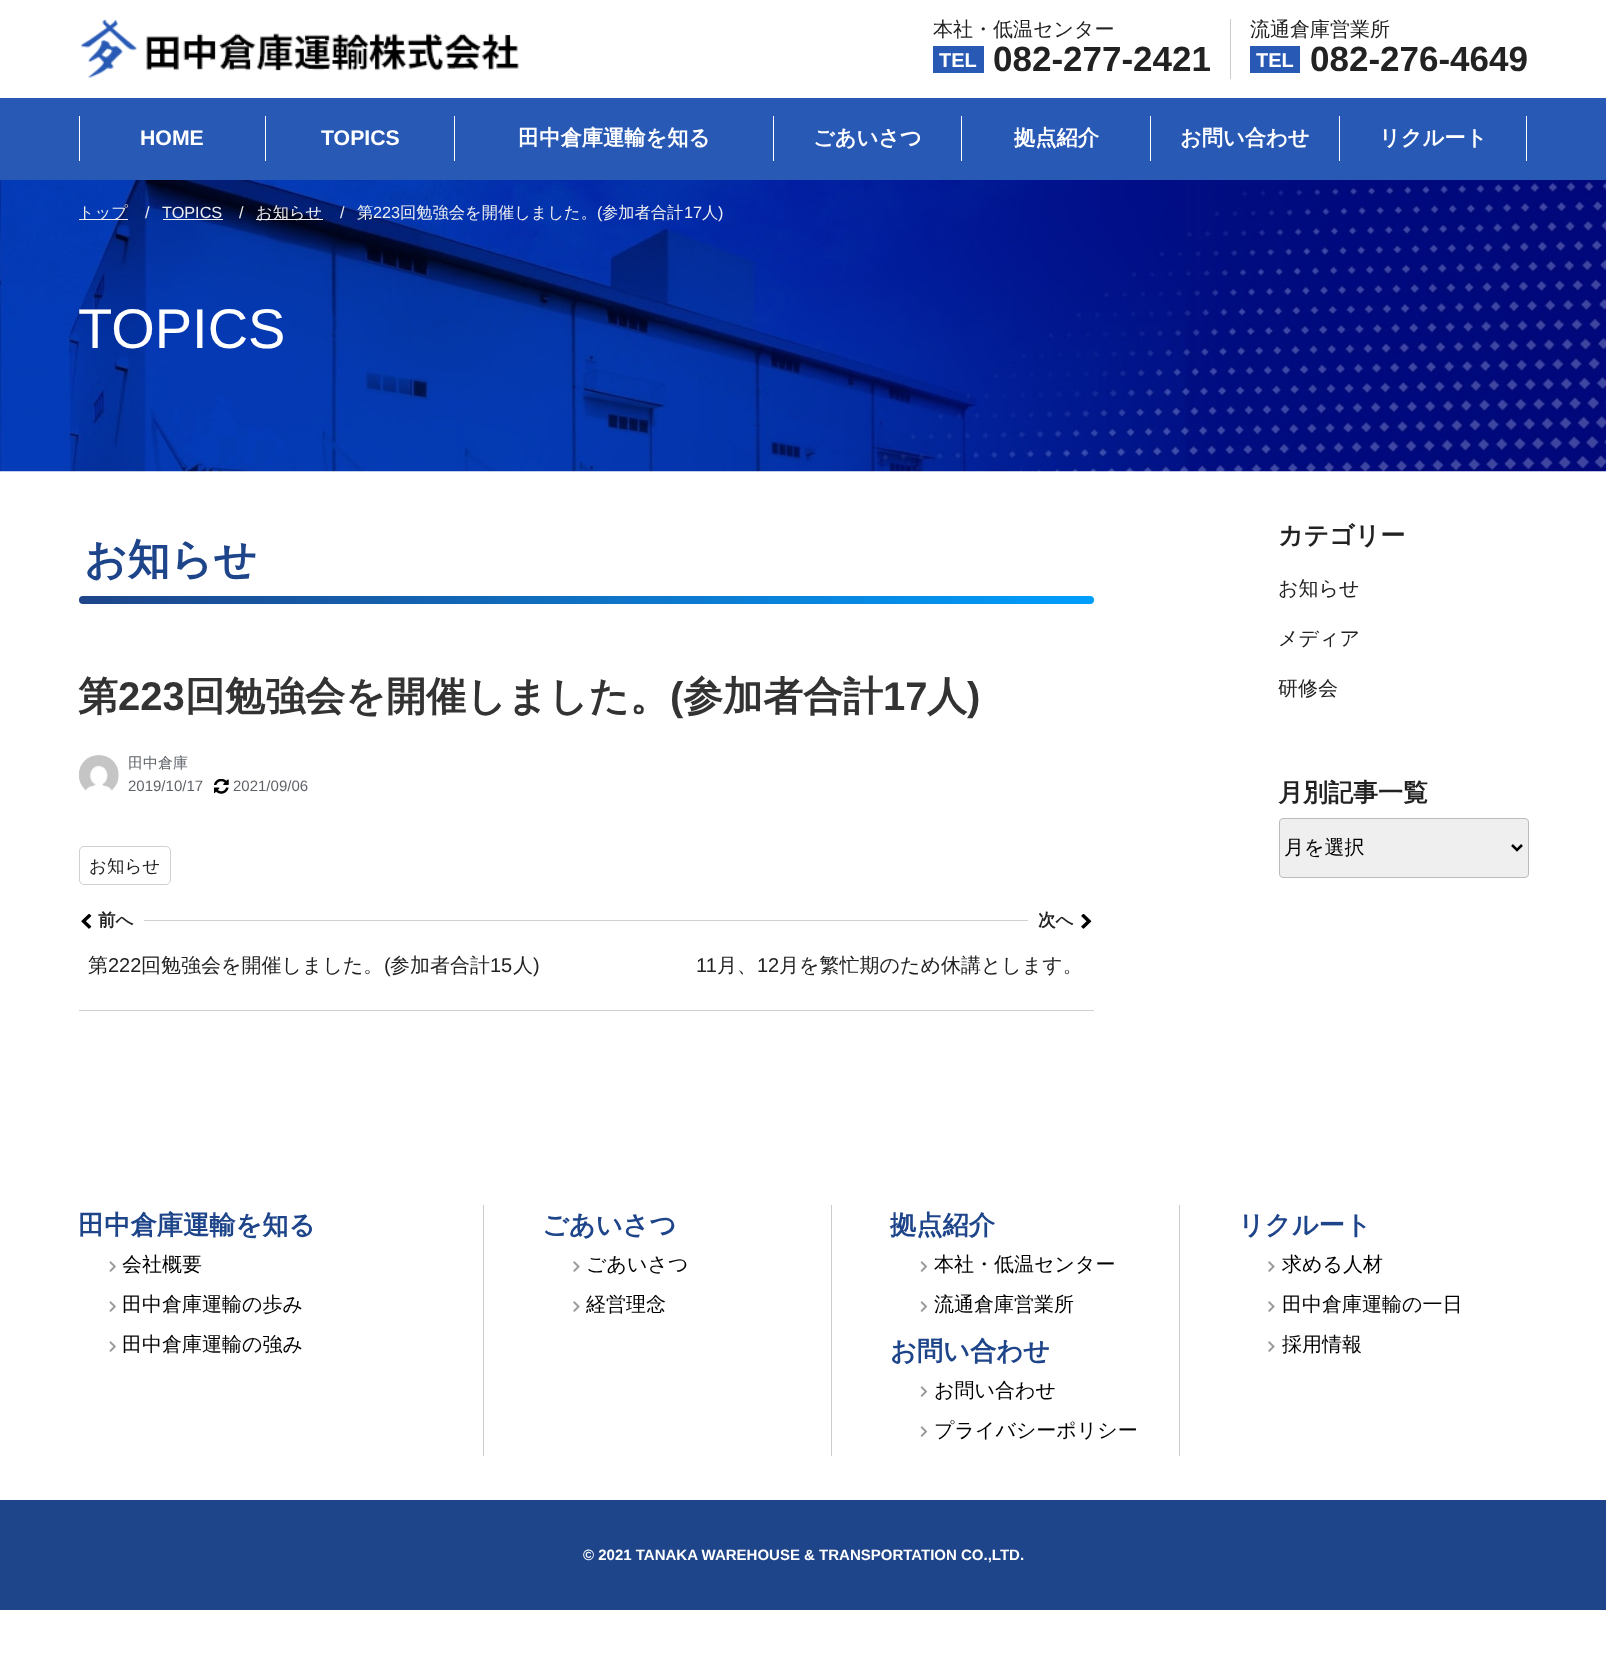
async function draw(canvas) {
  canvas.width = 1606
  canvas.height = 1654
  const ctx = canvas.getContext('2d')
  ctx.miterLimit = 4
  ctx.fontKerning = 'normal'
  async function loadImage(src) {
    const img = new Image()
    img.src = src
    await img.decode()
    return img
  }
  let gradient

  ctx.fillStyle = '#fff'
  ctx.fillRect(0, 0, 1606, 1654)
  ctx.drawImage(await loadImage('image0.png'), 81, 19, 438, 59)
  ctx.font = '500 20px WenQuanYi Zen Hei'
  ctx.fillStyle = '#222'
  ctx.fillText('本社・低温センター', 933, 36)
  ctx.fillStyle = '#285ab5'
  ctx.fillRect(933, 46, 51, 27)
  ctx.font = 'bold 20px Liberation Sans'
  ctx.fillStyle = '#fff'
  ctx.fillText('TEL', 939, 67)
  ctx.font = 'bold 35px Liberation Sans'
  ctx.fillStyle = '#222'
  ctx.fillText('082-277-2421', 993, 71)
  ctx.fillStyle = '#ccc'
  ctx.fillRect(1230, 19, 1, 60)
  ctx.font = '500 20px WenQuanYi Zen Hei'
  ctx.fillStyle = '#222'
  ctx.fillText('流通倉庫営業所', 1250, 36)
  ctx.fillStyle = '#285ab5'
  ctx.fillRect(1250, 46, 50, 27)
  ctx.font = 'bold 20px Liberation Sans'
  ctx.fillStyle = '#fff'
  ctx.fillText('TEL', 1256, 67)
  ctx.font = 'bold 35px Liberation Sans'
  ctx.fillStyle = '#222'
  ctx.fillText('082-276-4649', 1310, 71)
  ctx.fillStyle = '#285ab5'
  ctx.fillRect(0, 98, 1606, 82)
  ctx.fillStyle = '#fff'
  ctx.fillRect(265, 116, 1, 45)
  ctx.fillRect(79, 116, 1, 45)
  ctx.font = 'bold 21.25px Liberation Sans'
  ctx.fillText('HOME', 140, 145)
  ctx.fillRect(454, 116, 1, 45)
  ctx.fillText('TOPICS', 321, 145)
  ctx.fillRect(773, 116, 1, 45)
  ctx.font = 'bold 21.25px WenQuanYi Zen Hei'
  ctx.fillText('田中倉庫運輸を知る', 518, 145)
  ctx.fillRect(961, 116, 1, 45)
  ctx.fillText('ごあいさつ', 813, 145)
  ctx.fillRect(1150, 116, 1, 45)
  ctx.fillText('拠点紹介', 1014, 145)
  ctx.fillRect(1339, 116, 1, 45)
  ctx.fillText('お問い合わせ', 1180, 145)
  ctx.fillRect(1526, 116, 1, 45)
  ctx.fillText('リクルート', 1379, 145)
  ctx.drawImage(await loadImage('image1.png'), 0, 180, 1606, 292)
  ctx.fillStyle = '#efefef'
  ctx.fillRect(79, 219, 49, 1)
  ctx.font = '500 16.25px WenQuanYi Zen Hei'
  ctx.fillText('トップ', 78, 218)
  ctx.font = '16.25px Liberation Sans'
  ctx.fillText('/', 145, 218)
  ctx.fillText('TOPICS', 162, 218)
  ctx.fillRect(163, 219, 60, 1)
  ctx.fillText('/', 239, 218)
  ctx.fillRect(256, 219, 67, 1)
  ctx.font = '500 16.25px WenQuanYi Zen Hei'
  ctx.fillText('お知らせ', 256, 218)
  ctx.font = '16.25px Liberation Sans'
  ctx.fillText('/', 340, 218)
  ctx.font = '500 16.25px WenQuanYi Zen Hei'
  ctx.fillText('第', 357, 218)
  ctx.font = '16.25px Liberation Sans'
  ctx.fillText('223', 373, 218)
  ctx.font = '500 16.25px WenQuanYi Zen Hei'
  ctx.fillText('回勉強会を開催しました。', 400, 218)
  ctx.font = '16.25px Liberation Sans'
  ctx.fillText('(', 597, 218)
  ctx.font = '500 16.25px WenQuanYi Zen Hei'
  ctx.fillText('参加者合計', 602, 218)
  ctx.font = '16.25px Liberation Sans'
  ctx.fillText('17', 684, 218)
  ctx.font = '500 16.25px WenQuanYi Zen Hei'
  ctx.fillText('人', 702, 218)
  ctx.font = '16.25px Liberation Sans'
  ctx.fillText(')', 718, 218)
  ctx.font = '56px Liberation Sans'
  ctx.fillStyle = '#fff'
  ctx.fillText('TOPICS', 78, 348)
  ctx.font = 'bold 42.5px WenQuanYi Zen Hei'
  ctx.fillStyle = '#1e458a'
  ctx.fillText('お知らせ', 84, 574)
  gradient = ctx.createLinearGradient(1094, 600, 79, 600)
  gradient.addColorStop(0, '#009efd')
  gradient.addColorStop(1, '#1e458a')
  ctx.fillStyle = gradient
  ctx.beginPath()
  ctx.roundRect(79, 596, 1015, 8, 4)
  ctx.fill()
  ctx.font = 'bold 40px WenQuanYi Zen Hei'
  ctx.fillStyle = '#333'
  ctx.fillText('第', 78, 710)
  ctx.font = 'bold 40px Liberation Sans'
  ctx.fillText('223', 118, 710)
  ctx.font = 'bold 40px WenQuanYi Zen Hei'
  ctx.fillText('回勉強会を開催しました。', 185, 710)
  ctx.font = 'bold 40px Liberation Sans'
  ctx.fillText('(', 670, 710)
  ctx.font = 'bold 40px WenQuanYi Zen Hei'
  ctx.fillText('参加者合計', 683, 710)
  ctx.font = 'bold 40px Liberation Sans'
  ctx.fillText('17', 883, 710)
  ctx.font = 'bold 40px WenQuanYi Zen Hei'
  ctx.fillText('人', 927, 710)
  ctx.font = 'bold 40px Liberation Sans'
  ctx.fillText(')', 967, 710)
  ctx.drawImage(await loadImage('image2.png'), 79, 755, 40, 36)
  ctx.font = '500 15px WenQuanYi Zen Hei'
  ctx.fillStyle = '#5f6368'
  ctx.fillText('田中倉庫', 128, 768)
  ctx.font = '15px Liberation Sans'
  ctx.fillText('2019/10/17', 128, 791)
  ctx.drawImage(await loadImage('image3.png'), 214, 779, 15, 15)
  ctx.fillText('2021/09/06', 233, 791)
  ctx.beginPath()
  ctx.roundRect(79.5, 846.5, 91, 38, 4.5)
  ctx.strokeStyle = '#d0d0d0'
  ctx.stroke()
  ctx.font = '500 17.5px WenQuanYi Zen Hei'
  ctx.fillStyle = '#222'
  ctx.fillText('お知らせ', 89, 872)
  ctx.fillStyle = '#d0d0d0'
  ctx.fillRect(79, 1010, 1015, 1)
  ctx.drawImage(await loadImage('image4.png'), 81, 914, 11, 15)
  ctx.font = 'bold 17.5px WenQuanYi Zen Hei'
  ctx.fillStyle = '#222'
  ctx.fillText('前へ', 98, 926)
  ctx.fillStyle = '#d0d0d0'
  ctx.fillRect(144, 920, 884, 1)
  ctx.fillStyle = '#222'
  ctx.fillText('次へ', 1038, 926)
  ctx.drawImage(await loadImage('image5.png'), 1081, 914, 11, 15)
  ctx.font = '500 20px WenQuanYi Zen Hei'
  ctx.fillText('第', 88, 972)
  ctx.font = '20px Liberation Sans'
  ctx.fillText('222', 108, 972)
  ctx.font = '500 20px WenQuanYi Zen Hei'
  ctx.fillText('回勉強会を開催しました。', 141, 972)
  ctx.font = '20px Liberation Sans'
  ctx.fillText('(', 384, 972)
  ctx.font = '500 20px WenQuanYi Zen Hei'
  ctx.fillText('参加者合計', 390, 972)
  ctx.font = '20px Liberation Sans'
  ctx.fillText('15', 490, 972)
  ctx.font = '500 20px WenQuanYi Zen Hei'
  ctx.fillText('人', 513, 972)
  ctx.font = '20px Liberation Sans'
  ctx.fillText(')', 533, 972)
  ctx.fillText('11', 696, 972)
  ctx.font = '500 20px WenQuanYi Zen Hei'
  ctx.fillText('月、', 717, 972)
  ctx.font = '20px Liberation Sans'
  ctx.fillText('12', 757, 972)
  ctx.font = '500 20px WenQuanYi Zen Hei'
  ctx.fillText('月を繁忙期のため休講とします。', 779, 972)
  ctx.font = 'bold 25px WenQuanYi Zen Hei'
  ctx.fillText('カテゴリー', 1278, 544)
  ctx.font = '500 20px WenQuanYi Zen Hei'
  ctx.fillText('お知らせ', 1278, 595)
  ctx.fillText('メディア', 1278, 645)
  ctx.fillText('研修会', 1278, 695)
  ctx.font = 'bold 25px WenQuanYi Zen Hei'
  ctx.fillText('月別記事一覧', 1278, 801)
  ctx.fillStyle = '#efefef'
  ctx.beginPath()
  ctx.roundRect(1279.5, 818.5, 249, 59, 3.5)
  ctx.fill()
  ctx.strokeStyle = '#bbb'
  ctx.stroke()
  ctx.beginPath()
  ctx.moveTo(1512, 845)
  ctx.lineTo(1517, 850)
  ctx.lineTo(1522, 845)
  ctx.strokeStyle = '#000'
  ctx.lineWidth = 2.5
  ctx.stroke()
  ctx.font = '500 20px WenQuanYi Zen Hei'
  ctx.fillStyle = '#000'
  ctx.fillText('月を選択', 1284, 854)
  ctx.fillStyle = '#ccc'
  ctx.fillRect(483, 1205, 1, 251)
  ctx.font = 'bold 26.25px WenQuanYi Zen Hei'
  ctx.fillStyle = '#1e458a'
  ctx.fillText('田中倉庫運輸を知る', 78, 1234)
  ctx.drawImage(await loadImage('image6.png'), 109, 1261, 7, 11)
  ctx.font = '500 20px WenQuanYi Zen Hei'
  ctx.fillStyle = '#000'
  ctx.fillText('会社概要', 122, 1271)
  ctx.drawImage(await loadImage('image6.png'), 109, 1301, 7, 11)
  ctx.fillText('田中倉庫運輸の歩み', 122, 1311)
  ctx.drawImage(await loadImage('image6.png'), 109, 1341, 7, 11)
  ctx.fillText('田中倉庫運輸の強み', 122, 1351)
  ctx.fillStyle = '#ccc'
  ctx.fillRect(831, 1205, 1, 251)
  ctx.font = 'bold 26.25px WenQuanYi Zen Hei'
  ctx.fillStyle = '#1e458a'
  ctx.fillText('ごあいさつ', 542, 1234)
  ctx.drawImage(await loadImage('image7.png'), 573, 1261, 7, 11)
  ctx.font = '500 20px WenQuanYi Zen Hei'
  ctx.fillStyle = '#000'
  ctx.fillText('ごあいさつ', 586, 1271)
  ctx.drawImage(await loadImage('image7.png'), 573, 1301, 7, 11)
  ctx.fillText('経営理念', 586, 1311)
  ctx.fillStyle = '#ccc'
  ctx.fillRect(1179, 1205, 1, 251)
  ctx.font = 'bold 26.25px WenQuanYi Zen Hei'
  ctx.fillStyle = '#1e458a'
  ctx.fillText('拠点紹介', 890, 1234)
  ctx.drawImage(await loadImage('image8.png'), 920, 1261, 8, 11)
  ctx.font = '500 20px WenQuanYi Zen Hei'
  ctx.fillStyle = '#000'
  ctx.fillText('本社・低温センター', 934, 1271)
  ctx.drawImage(await loadImage('image8.png'), 920, 1301, 8, 11)
  ctx.fillText('流通倉庫営業所', 934, 1311)
  ctx.font = 'bold 26.25px WenQuanYi Zen Hei'
  ctx.fillStyle = '#1e458a'
  ctx.fillText('お問い合わせ', 890, 1360)
  ctx.drawImage(await loadImage('image8.png'), 920, 1386, 8, 11)
  ctx.font = '500 20px WenQuanYi Zen Hei'
  ctx.fillStyle = '#000'
  ctx.fillText('お問い合わせ', 934, 1397)
  ctx.drawImage(await loadImage('image8.png'), 920, 1426, 8, 11)
  ctx.fillText('プライバシーポリシー', 934, 1437)
  ctx.font = 'bold 26.25px WenQuanYi Zen Hei'
  ctx.fillStyle = '#1e458a'
  ctx.fillText('リクルート', 1238, 1234)
  ctx.drawImage(await loadImage('image7.png'), 1268, 1261, 7, 11)
  ctx.font = '500 20px WenQuanYi Zen Hei'
  ctx.fillStyle = '#000'
  ctx.fillText('求める人材', 1282, 1271)
  ctx.drawImage(await loadImage('image7.png'), 1268, 1301, 7, 11)
  ctx.fillText('田中倉庫運輸の一日', 1282, 1311)
  ctx.drawImage(await loadImage('image7.png'), 1268, 1341, 7, 11)
  ctx.fillText('採用情報', 1282, 1351)
  ctx.fillStyle = '#1e458a'
  ctx.fillRect(0, 1500, 1606, 110)
  ctx.font = 'bold 15px Liberation Sans'
  ctx.fillStyle = '#fff'
  ctx.fillText('© 2021 TANAKA WAREHOUSE & TRANSPORTATION CO.,LTD.', 583, 1560)
}

draw(document.querySelector('canvas'))
